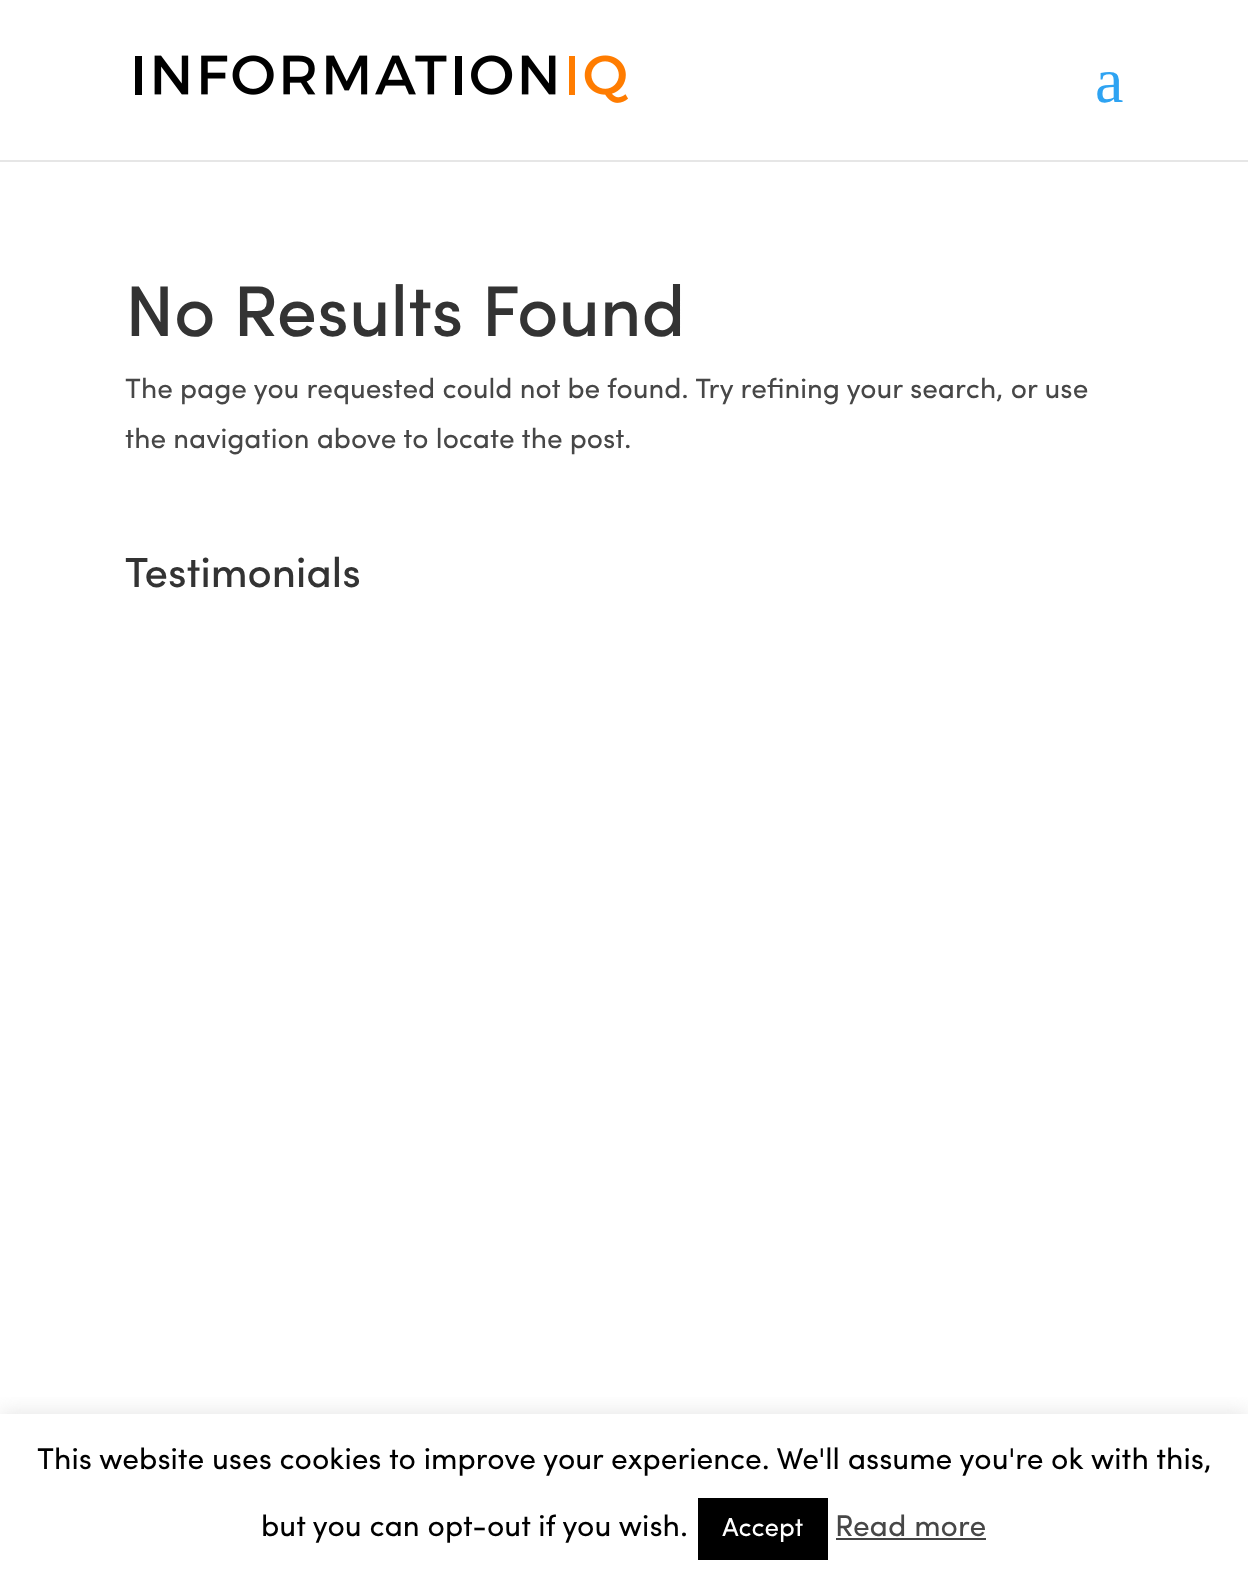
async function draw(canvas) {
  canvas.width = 1248
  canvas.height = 1583
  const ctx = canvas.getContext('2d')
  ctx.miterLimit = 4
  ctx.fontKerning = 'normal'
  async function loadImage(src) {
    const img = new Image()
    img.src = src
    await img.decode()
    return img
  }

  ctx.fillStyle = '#fff'
  ctx.fillRect(0, 0, 1248, 1583)
  ctx.fillStyle = '#e6e6e6'
  ctx.fillRect(0, 160, 1248, 2)
  ctx.drawImage(await loadImage('image0.png'), 135, 55, 493, 48)
  ctx.font = '64px Liberation Serif'
  ctx.fillStyle = '#2ea3f2'
  ctx.fillText('a', 1095, 102)
  ctx.font = '500 72px Sofia'
  ctx.fillStyle = '#333'
  ctx.fillText('No Results Found', 125, 336)
  ctx.font = '28px Sofia'
  ctx.fillStyle = '#474747'
  ctx.fillText('The page you requested could not be found. Try refining your search, or use', 125, 398)
  ctx.fillText('the navigation above to locate the post.', 125, 448)
  ctx.font = '500 42px Sofia'
  ctx.fillStyle = '#333'
  ctx.fillText('Testimonials', 125, 587)
  ctx.save()
  ctx.beginPath()
  ctx.rect(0, 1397, 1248, 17)
  ctx.clip()
  ctx.fillStyle = '#acabab4d'
  ctx.filter = 'blur(10px)'
  ctx.beginPath()
  ctx.rect(0, 1412, 1248, 170)
  ctx.fill()
  ctx.filter = 'none'
  ctx.restore()
  ctx.font = '30px Sofia'
  ctx.fillStyle = '#000'
  ctx.fillText('This website uses cookies to improve your experience. We\'ll assume you\'re ok with this,', 37, 1469)
  ctx.fillText('but you can opt-out if you wish.', 261, 1536)
  ctx.fillRect(698, 1498, 130, 62)
  ctx.font = '26px Sofia'
  ctx.fillStyle = '#fff'
  ctx.fillText('Accept', 722, 1536)
  ctx.font = '30px Sofia'
  ctx.fillStyle = '#474747'
  ctx.fillText('Read more', 835, 1536)
  ctx.fillStyle = '#444'
  ctx.fillRect(836, 1538, 150, 2)
}

draw(document.querySelector('canvas'))
